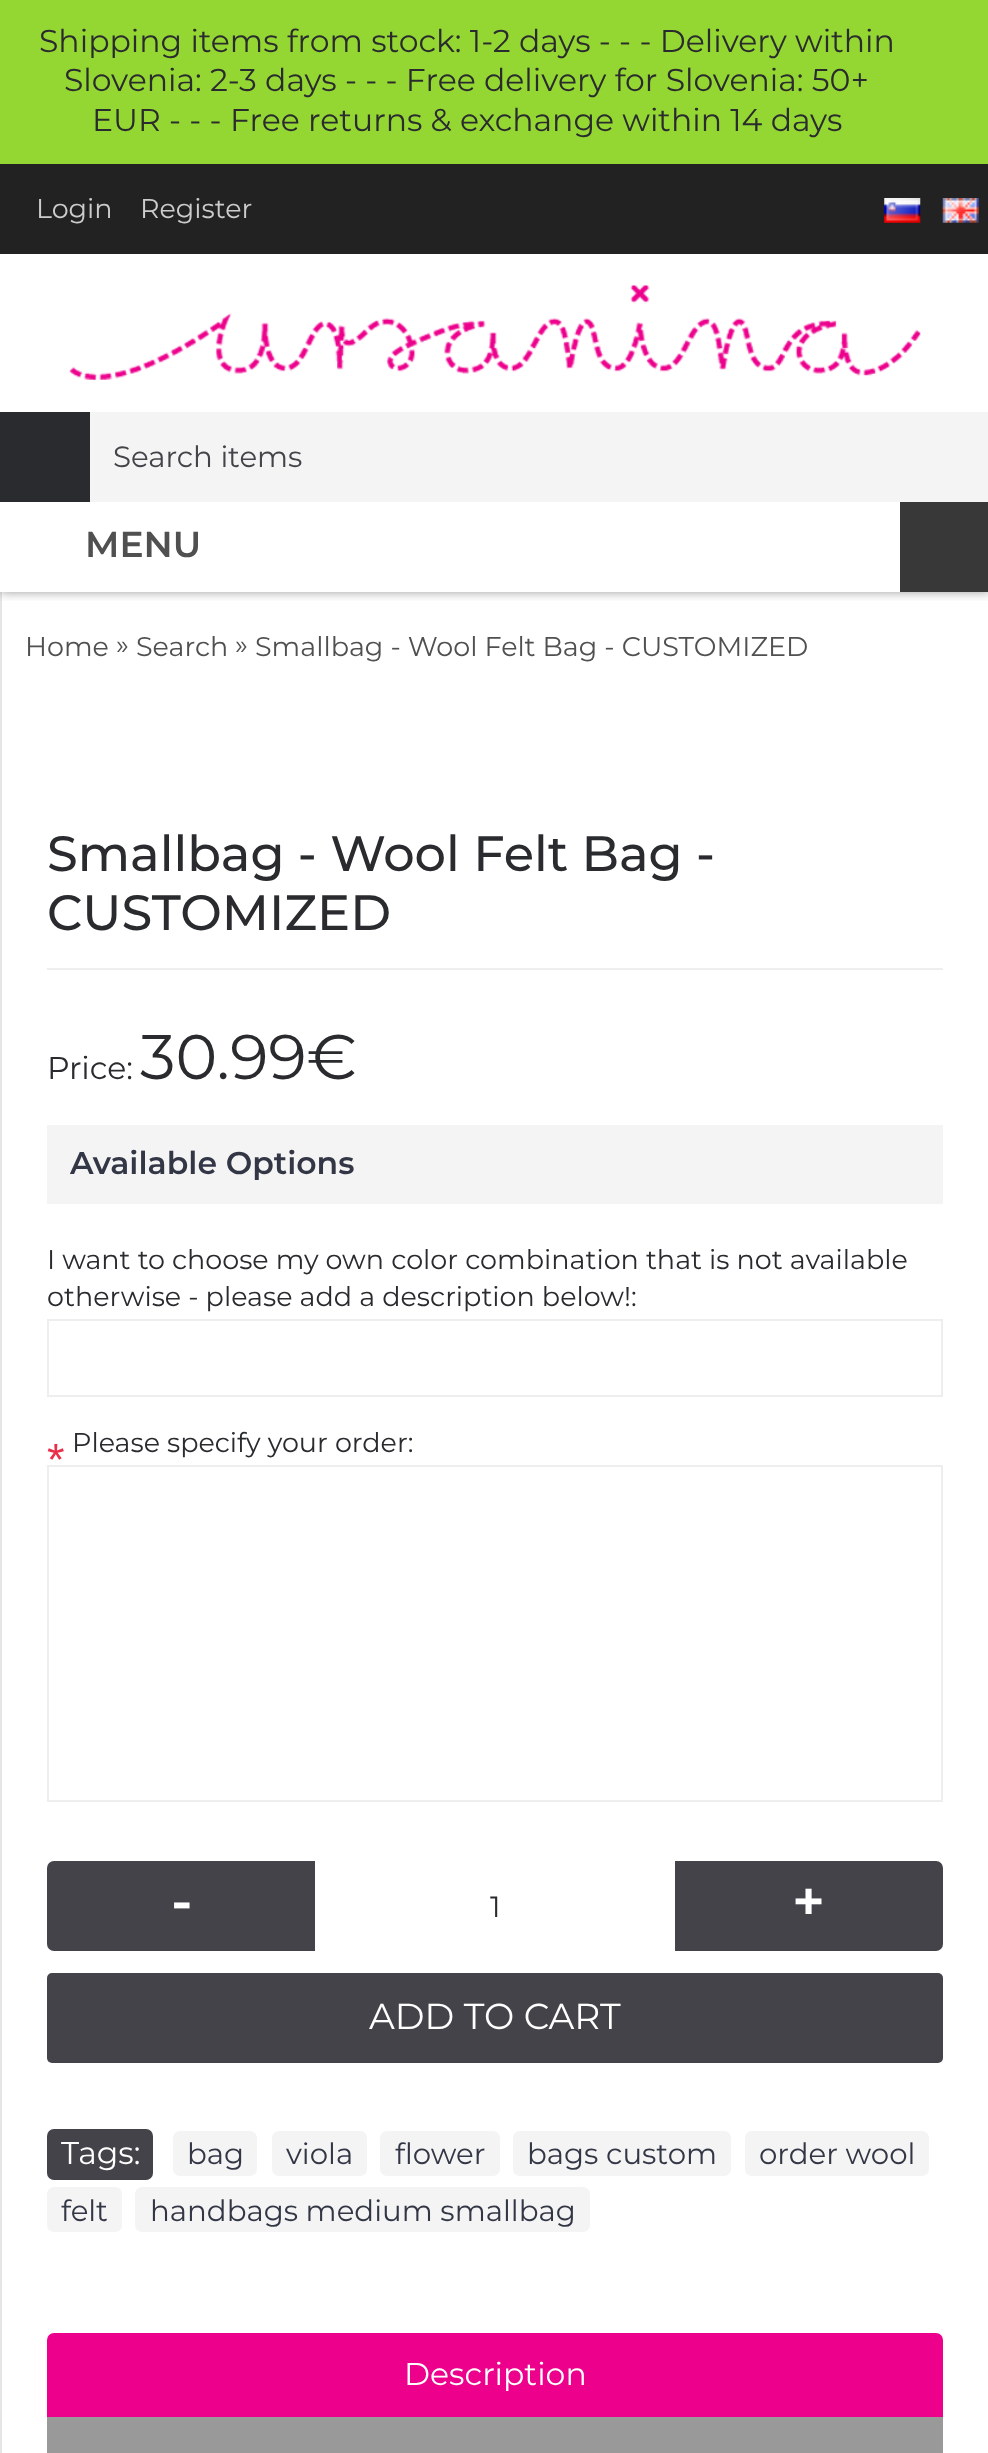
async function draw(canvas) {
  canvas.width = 988
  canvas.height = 2453
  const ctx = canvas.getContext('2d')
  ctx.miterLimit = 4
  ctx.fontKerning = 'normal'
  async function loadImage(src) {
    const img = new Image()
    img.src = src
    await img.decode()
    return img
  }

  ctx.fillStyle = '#fff'
  ctx.fillRect(0, 0, 988, 2453)
  ctx.fillStyle = '#e5e5e5'
  ctx.fillRect(0, 592, 2, 1861)
  ctx.save()
  ctx.beginPath()
  ctx.rect(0, 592, 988, 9)
  ctx.clip()
  ctx.fillStyle = '#00000066'
  ctx.filter = 'blur(5.5px)'
  ctx.beginPath()
  ctx.rect(0, 164, 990, 428)
  ctx.fill()
  ctx.filter = 'none'
  ctx.restore()
  ctx.fillStyle = '#94d732'
  ctx.fillRect(0, 0, 988, 164)
  ctx.font = '31.5px Montserrat'
  ctx.fillStyle = '#2a2b2e'
  ctx.fillText('Shipping items from stock: 1-2 days - - - Delivery within', 39, 52)
  ctx.fillText('Slovenia: 2-3 days - - - Free delivery for Slovenia: 50+', 64, 91)
  ctx.fillText('EUR - - - Free returns & exchange within 14 days', 92, 131)
  ctx.fillStyle = '#222'
  ctx.fillRect(0, 164, 988, 90)
  ctx.font = '27px Montserrat'
  ctx.fillStyle = '#ccc'
  ctx.fillText('Login', 36, 218)
  ctx.fillText('Register', 140, 218)
  ctx.drawImage(await loadImage('image0.png'), 884, 198, 37, 25)
  ctx.drawImage(await loadImage('image1.png'), 942, 198, 37, 25)
  ctx.drawImage(await loadImage('image2.png'), 69, 285, 852, 95)
  ctx.fillStyle = '#2a2b2e'
  ctx.fillRect(0, 412, 90, 90)
  ctx.fillStyle = '#f4f4f4'
  ctx.fillRect(90, 412, 898, 90)
  ctx.font = '29.25px Montserrat'
  ctx.fillStyle = '#444349'
  ctx.fillText('Search items', 113, 467)
  ctx.fillStyle = '#fff'
  ctx.fillRect(0, 591, 900, 1)
  ctx.fillStyle = '#383838'
  ctx.fillRect(900, 502, 88, 90)
  ctx.font = '600 36px Montserrat'
  ctx.fillStyle = '#505050'
  ctx.fillText('MENU', 85, 557)
  ctx.font = '27px Montserrat'
  ctx.fillText('Home', 25, 656)
  ctx.fillText('»', 116, 654)
  ctx.fillText('Search', 136, 656)
  ctx.fillText('»', 235, 654)
  ctx.fillText('Smallbag - Wool Felt Bag - CUSTOMIZED', 255, 656)
  ctx.fillStyle = '#eee'
  ctx.fillRect(47, 968, 896, 2)
  ctx.font = '500 49.5px Montserrat'
  ctx.fillStyle = '#2a2b2e'
  ctx.fillText('Smallbag - Wool Felt Bag -', 47, 871)
  ctx.fillText('CUSTOMIZED', 47, 930)
  ctx.font = '31.5px Montserrat'
  ctx.fillText('Price:', 47, 1079)
  ctx.font = '63px Montserrat'
  ctx.fillText('30.99€', 140, 1079)
  ctx.fillStyle = '#f4f4f4'
  ctx.fillRect(47, 1125, 896, 79)
  ctx.font = '600 31.5px Montserrat'
  ctx.fillStyle = '#333745'
  ctx.fillText('Available Options', 70, 1174)
  ctx.font = '27px Montserrat'
  ctx.fillStyle = '#2a2b2e'
  ctx.fillText('I want to choose my own color combination that is not available', 47, 1269)
  ctx.fillText('otherwise - please add a description below!:', 47, 1306)
  ctx.strokeStyle = '#eee'
  ctx.lineWidth = 2
  ctx.strokeRect(48, 1320, 894, 76)
  ctx.font = '45px Liberation Sans'
  ctx.fillStyle = '#ea2e49'
  ctx.fillText('*', 47, 1475)
  ctx.font = '27px Montserrat'
  ctx.fillStyle = '#2a2b2e'
  ctx.fillText('Please specify your order:', 72, 1452)
  ctx.strokeRect(48, 1466, 894, 335)
  ctx.fillStyle = '#444349'
  ctx.beginPath()
  ctx.roundRect(47, 1861, 268, 90, [7, 0, 0, 7])
  ctx.fill()
  ctx.font = '600 56px Montserrat'
  ctx.fillStyle = '#fff'
  ctx.fillText('-', 171, 1921)
  ctx.font = '29.25px Montserrat'
  ctx.fillStyle = '#2a2b2e'
  ctx.fillText('1', 490, 1917)
  ctx.fillStyle = '#444349'
  ctx.beginPath()
  ctx.roundRect(675, 1861, 268, 90, [0, 7, 7, 0])
  ctx.fill()
  ctx.font = '600 56px Montserrat'
  ctx.fillStyle = '#fff'
  ctx.fillText('+', 792, 1921)
  ctx.fillStyle = '#444349'
  ctx.beginPath()
  ctx.roundRect(47, 1973, 896, 90, 5)
  ctx.fill()
  ctx.font = '36px Montserrat'
  ctx.fillStyle = '#fff'
  ctx.fillText('ADD TO CART', 369, 2029)
  ctx.fillStyle = '#444349'
  ctx.beginPath()
  ctx.roundRect(47, 2129, 106, 51, 7)
  ctx.fill()
  ctx.font = '31.5px Montserrat'
  ctx.fillStyle = '#fff'
  ctx.fillText('Tags:', 61, 2164)
  ctx.fillStyle = '#f4f4f4'
  ctx.beginPath()
  ctx.roundRect(173, 2131, 84, 45, 7)
  ctx.fill()
  ctx.font = '29.25px Montserrat'
  ctx.fillStyle = '#333745'
  ctx.fillText('bag', 187, 2164)
  ctx.fillStyle = '#f4f4f4'
  ctx.beginPath()
  ctx.roundRect(272, 2131, 95, 45, 7)
  ctx.fill()
  ctx.fillStyle = '#333745'
  ctx.fillText('viola', 286, 2164)
  ctx.fillStyle = '#f4f4f4'
  ctx.beginPath()
  ctx.roundRect(380, 2131, 120, 45, 7)
  ctx.fill()
  ctx.fillStyle = '#333745'
  ctx.fillText('flower', 395, 2164)
  ctx.fillStyle = '#f4f4f4'
  ctx.beginPath()
  ctx.roundRect(513, 2131, 218, 45, 7)
  ctx.fill()
  ctx.fillStyle = '#333745'
  ctx.fillText('bags custom', 527, 2164)
  ctx.fillStyle = '#f4f4f4'
  ctx.beginPath()
  ctx.roundRect(745, 2131, 184, 45, 7)
  ctx.fill()
  ctx.fillStyle = '#333745'
  ctx.fillText('order wool', 759, 2164)
  ctx.fillStyle = '#f4f4f4'
  ctx.beginPath()
  ctx.roundRect(47, 2187, 75, 45, 7)
  ctx.fill()
  ctx.fillStyle = '#333745'
  ctx.fillText('felt', 61, 2221)
  ctx.fillStyle = '#f4f4f4'
  ctx.beginPath()
  ctx.roundRect(135, 2187, 455, 45, 7)
  ctx.fill()
  ctx.fillStyle = '#333745'
  ctx.fillText('handbags medium smallbag', 150, 2221)
  ctx.fillStyle = '#ec008c'
  ctx.beginPath()
  ctx.roundRect(47, 2333, 896, 84, [7, 7, 0, 0])
  ctx.fill()
  ctx.font = '31.5px Montserrat'
  ctx.fillStyle = '#fff'
  ctx.fillText('Description', 404, 2385)
  ctx.fillStyle = '#999'
  ctx.fillRect(47, 2417, 896, 36)
}

draw(document.querySelector('canvas'))
